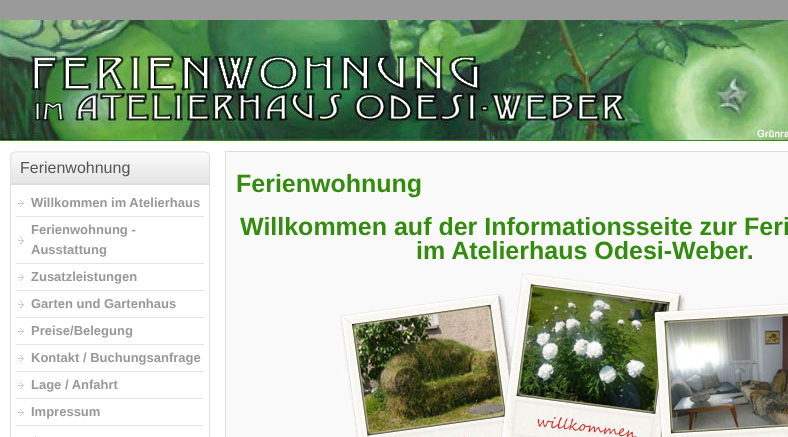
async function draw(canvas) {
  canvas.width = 788
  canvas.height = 437
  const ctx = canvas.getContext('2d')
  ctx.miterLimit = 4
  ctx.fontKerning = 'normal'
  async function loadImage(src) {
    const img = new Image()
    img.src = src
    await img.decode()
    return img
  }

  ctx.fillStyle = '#fff'
  ctx.fillRect(0, 0, 788, 437)
  ctx.drawImage(await loadImage('image0.png'), 0, 0, 788, 20)
  ctx.drawImage(await loadImage('image1.png'), 0, 20, 788, 120)
  ctx.fillStyle = '#348c0e'
  ctx.fillRect(0, 140, 788, 1)
  ctx.drawImage(await loadImage('image2.png'), 10, 151, 200, 33)
  ctx.font = '16px Liberation Sans'
  ctx.fillStyle = '#555'
  ctx.fillText('Ferienwohnung', 20, 173)
  ctx.strokeStyle = '#ddd'
  ctx.strokeRect(10.5, 184.5, 199, 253)
  ctx.fillStyle = '#e4e4e4'
  ctx.fillRect(16, 216, 188, 1)
  ctx.drawImage(await loadImage('image3.png'), 18, 200, 6, 7)
  ctx.font = 'bold 13px Liberation Sans'
  ctx.fillStyle = '#999'
  ctx.fillText('Willkommen im Atelierhaus', 31, 207)
  ctx.fillStyle = '#e4e4e4'
  ctx.fillRect(16, 263, 188, 1)
  ctx.drawImage(await loadImage('image3.png'), 18, 237, 6, 7)
  ctx.fillStyle = '#999'
  ctx.fillText('Ferienwohnung -', 31, 234)
  ctx.fillText('Ausstattung', 31, 254)
  ctx.fillStyle = '#e4e4e4'
  ctx.fillRect(16, 290, 188, 1)
  ctx.drawImage(await loadImage('image3.png'), 18, 274, 6, 7)
  ctx.fillStyle = '#999'
  ctx.fillText('Zusatzleistungen', 31, 281)
  ctx.fillStyle = '#e4e4e4'
  ctx.fillRect(16, 317, 188, 1)
  ctx.drawImage(await loadImage('image3.png'), 18, 301, 6, 7)
  ctx.fillStyle = '#999'
  ctx.fillText('Garten und Gartenhaus', 31, 308)
  ctx.fillStyle = '#e4e4e4'
  ctx.fillRect(16, 344, 188, 1)
  ctx.drawImage(await loadImage('image3.png'), 18, 328, 6, 7)
  ctx.fillStyle = '#999'
  ctx.fillText('Preise/Belegung', 31, 335)
  ctx.fillStyle = '#e4e4e4'
  ctx.fillRect(16, 371, 188, 1)
  ctx.drawImage(await loadImage('image3.png'), 18, 355, 6, 7)
  ctx.fillStyle = '#999'
  ctx.fillText('Kontakt / Buchungsanfrage', 31, 362)
  ctx.fillStyle = '#e4e4e4'
  ctx.fillRect(16, 398, 188, 1)
  ctx.drawImage(await loadImage('image3.png'), 18, 382, 6, 7)
  ctx.fillStyle = '#999'
  ctx.fillText('Lage / Anfahrt', 31, 389)
  ctx.drawImage(await loadImage('image3.png'), 18, 409, 6, 7)
  ctx.fillText('Impressum', 31, 416)
  ctx.fillStyle = '#e4e4e4'
  ctx.fillRect(16, 425, 188, 1)
  ctx.fillStyle = '#ccc'
  ctx.fillRect(35, 436, 1, 1)
  ctx.fillStyle = '#f9f9f9'
  ctx.beginPath()
  ctx.rect(225.5, 151.5, 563, 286)
  ctx.fill()
  ctx.stroke()
  ctx.font = 'bold 25px Liberation Sans'
  ctx.fillStyle = '#348c0e'
  ctx.fillText('Ferienwohnung', 236, 192)
  ctx.fillText('Willkommen auf der Informationsseite zur Feri', 240, 235)
  ctx.fillText('im Atelierhaus Odesi-Weber.', 416, 259)
  ctx.drawImage(await loadImage('image4.png'), 340, 273, 448, 164)
}

draw(document.querySelector('canvas'))
